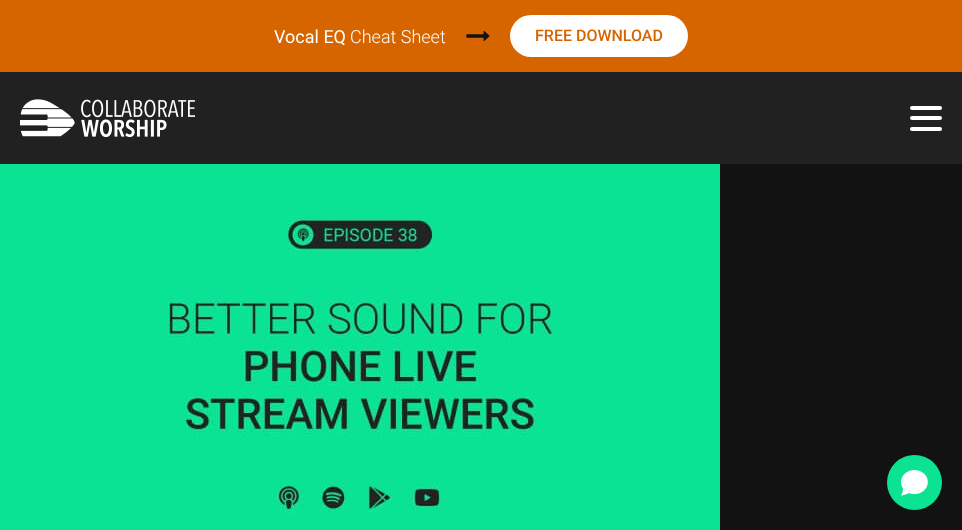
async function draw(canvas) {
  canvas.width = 962
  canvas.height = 530
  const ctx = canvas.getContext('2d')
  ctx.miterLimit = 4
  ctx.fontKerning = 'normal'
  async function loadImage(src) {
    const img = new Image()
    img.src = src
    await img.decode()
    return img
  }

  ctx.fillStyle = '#121212'
  ctx.fillRect(0, 0, 962, 530)
  ctx.fillStyle = '#d66500'
  ctx.fillRect(0, 0, 962, 72)
  ctx.font = '18px Roboto'
  ctx.fillStyle = '#fff'
  ctx.fillText('Vocal EQ', 274, 43)
  ctx.font = '300 18px Roboto'
  ctx.fillText('Cheat Sheet', 350, 43)
  ctx.drawImage(await loadImage('image0.png'), 466, 31, 24, 10)
  ctx.beginPath()
  ctx.roundRect(510, 15, 178, 42, 21)
  ctx.fill()
  ctx.font = '500 16px Roboto'
  ctx.fillStyle = '#d66500'
  ctx.fillText('FREE DOWNLOAD', 535, 41)
  ctx.fillStyle = '#212121'
  ctx.fillRect(0, 72, 962, 92)
  ctx.drawImage(await loadImage('image1.png'), 20, 99, 175, 38)
  ctx.fillStyle = '#fff'
  ctx.beginPath()
  ctx.roundRect(910, 106, 32, 4, 2)
  ctx.fill()
  ctx.beginPath()
  ctx.roundRect(910, 116, 32, 4, 2)
  ctx.fill()
  ctx.beginPath()
  ctx.roundRect(910, 127, 32, 4, 2)
  ctx.fill()
  ctx.drawImage(await loadImage('image2.png'), 0, 164, 720, 366)
  ctx.fillStyle = '#0be393'
  ctx.beginPath()
  ctx.arc(914.5, 482.5, 27.5, 0, 2 * Math.PI)
  ctx.fill()
  ctx.drawImage(await loadImage('image3.png'), 901, 470, 27, 26)
}

draw(document.querySelector('canvas'))
